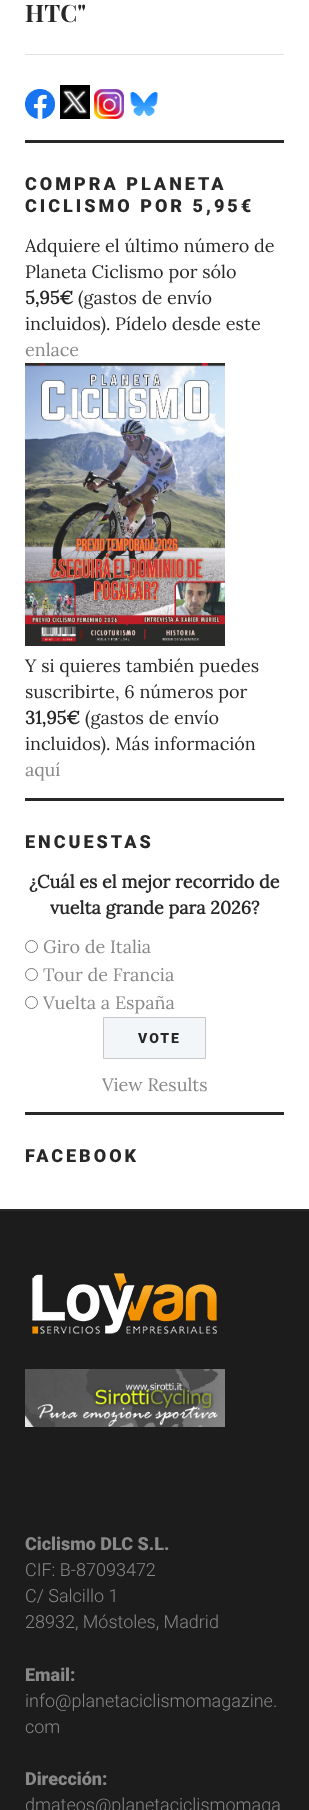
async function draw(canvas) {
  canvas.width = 309
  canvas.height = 1810
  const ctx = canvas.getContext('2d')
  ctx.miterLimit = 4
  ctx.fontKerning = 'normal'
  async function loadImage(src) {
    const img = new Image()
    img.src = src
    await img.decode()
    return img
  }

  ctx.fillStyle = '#fff'
  ctx.fillRect(0, 0, 309, 1810)
  ctx.fillStyle = '#e1e1e1'
  ctx.fillRect(25, 54, 259, 1)
  ctx.font = 'bold 24px Playfair Display'
  ctx.fillStyle = '#282828'
  ctx.fillText('HTC"', 25, 22)
  ctx.drawImage(await loadImage('image0.png'), 25, 89, 30, 30)
  ctx.drawImage(await loadImage('image1.png'), 60, 85, 30, 34)
  ctx.drawImage(await loadImage('image2.png'), 94, 89, 30, 30)
  ctx.drawImage(await loadImage('image3.png'), 130, 91, 28, 26)
  ctx.fillRect(25, 140, 259, 3)
  ctx.letterSpacing = '3px'
  ctx.font = '900 18px Roboto'
  ctx.fillText('COMPRA PLANETA', 25, 190)
  ctx.fillText('CICLISMO POR 5,95€', 25, 212)
  ctx.letterSpacing = '0px'
  ctx.font = '18px Lora'
  ctx.fillText('Adquiere el último número de', 25, 252)
  ctx.fillText('Planeta Ciclismo por sólo', 25, 278)
  ctx.font = 'bold 18px Lora'
  ctx.fillText('5,95€', 25, 304)
  ctx.font = '18px Lora'
  ctx.fillText('(gastos de envío', 78, 304)
  ctx.fillText('incluidos). Pídelo desde este', 25, 330)
  ctx.fillStyle = '#888'
  ctx.fillText('enlace', 25, 356)
  ctx.drawImage(await loadImage('image4.png'), 25, 363, 200, 283)
  ctx.fillStyle = '#282828'
  ctx.fillText('Y si quieres también puedes', 25, 672)
  ctx.fillText('suscribirte, 6 números por', 25, 698)
  ctx.font = 'bold 18px Lora'
  ctx.fillText('31,95€', 25, 724)
  ctx.font = '18px Lora'
  ctx.fillText('(gastos de envío', 85, 724)
  ctx.fillText('incluidos). Más información', 25, 750)
  ctx.fillStyle = '#888'
  ctx.fillText('aquí', 25, 776)
  ctx.fillStyle = '#282828'
  ctx.fillRect(25, 798, 259, 3)
  ctx.letterSpacing = '3px'
  ctx.font = '900 18px Roboto'
  ctx.fillText('ENCUESTAS', 25, 848)
  ctx.letterSpacing = '0px'
  ctx.font = 'bold 18px Lora'
  ctx.fillText('¿Cuál es el mejor recorrido de', 29, 888)
  ctx.fillText('vuelta grande para 2026?', 50, 914)
  ctx.beginPath()
  ctx.arc(31.5, 946.5, 6, 0, 2 * Math.PI)
  ctx.strokeStyle = '#767676'
  ctx.stroke()
  ctx.font = '18px Lora'
  ctx.fillStyle = '#888'
  ctx.fillText('Giro de Italia', 43, 953)
  ctx.beginPath()
  ctx.arc(31.5, 974.5, 6, 0, 2 * Math.PI)
  ctx.stroke()
  ctx.fillText('Tour de Francia', 43, 981)
  ctx.beginPath()
  ctx.arc(31.5, 1002.5, 6, 0, 2 * Math.PI)
  ctx.stroke()
  ctx.fillText('Vuelta a España', 43, 1009)
  ctx.fillStyle = '#f3f6f8'
  ctx.beginPath()
  ctx.rect(103.5, 1017.5, 102, 41)
  ctx.fill()
  ctx.strokeStyle = '#c8c8c8'
  ctx.stroke()
  ctx.letterSpacing = '2px'
  ctx.font = '900 14px Roboto'
  ctx.fillStyle = '#282828'
  ctx.fillText('VOTE', 138, 1043)
  ctx.letterSpacing = '0px'
  ctx.font = '18px Lora'
  ctx.fillStyle = '#888'
  ctx.fillText('View Results', 102, 1091)
  ctx.fillStyle = '#282828'
  ctx.fillRect(25, 1112, 259, 3)
  ctx.letterSpacing = '3px'
  ctx.font = '900 18px Roboto'
  ctx.fillText('FACEBOOK', 25, 1162)
  ctx.fillStyle = '#1c1c1c'
  ctx.fillRect(0, 1211, 309, 599)
  ctx.fillStyle = '#282828'
  ctx.fillRect(0, 1209, 309, 2)
  ctx.drawImage(await loadImage('image5.png'), 32, 1273, 185, 61)
  ctx.drawImage(await loadImage('image6.png'), 25, 1369, 200, 58)
  ctx.letterSpacing = '0px'
  ctx.fillStyle = '#888'
  ctx.fillText('Ciclismo DLC S.L.', 25, 1550)
  ctx.font = '300 18px Roboto'
  ctx.fillText('CIF: B-87093472', 25, 1576)
  ctx.fillText('C/ Salcillo 1', 25, 1602)
  ctx.fillText('28932, Móstoles, Madrid', 25, 1628)
  ctx.font = '900 18px Roboto'
  ctx.fillText('Email:', 25, 1681)
  ctx.font = '300 18px Roboto'
  ctx.fillText('info@planetaciclismomagazine.', 25, 1707)
  ctx.fillText('com', 25, 1733)
  ctx.font = '900 18px Roboto'
  ctx.fillText('Dirección:', 25, 1785)
  ctx.font = '300 18px Roboto'
  ctx.fillText('dmateos@planetaciclismomaga', 25, 1811)
}

draw(document.querySelector('canvas'))
